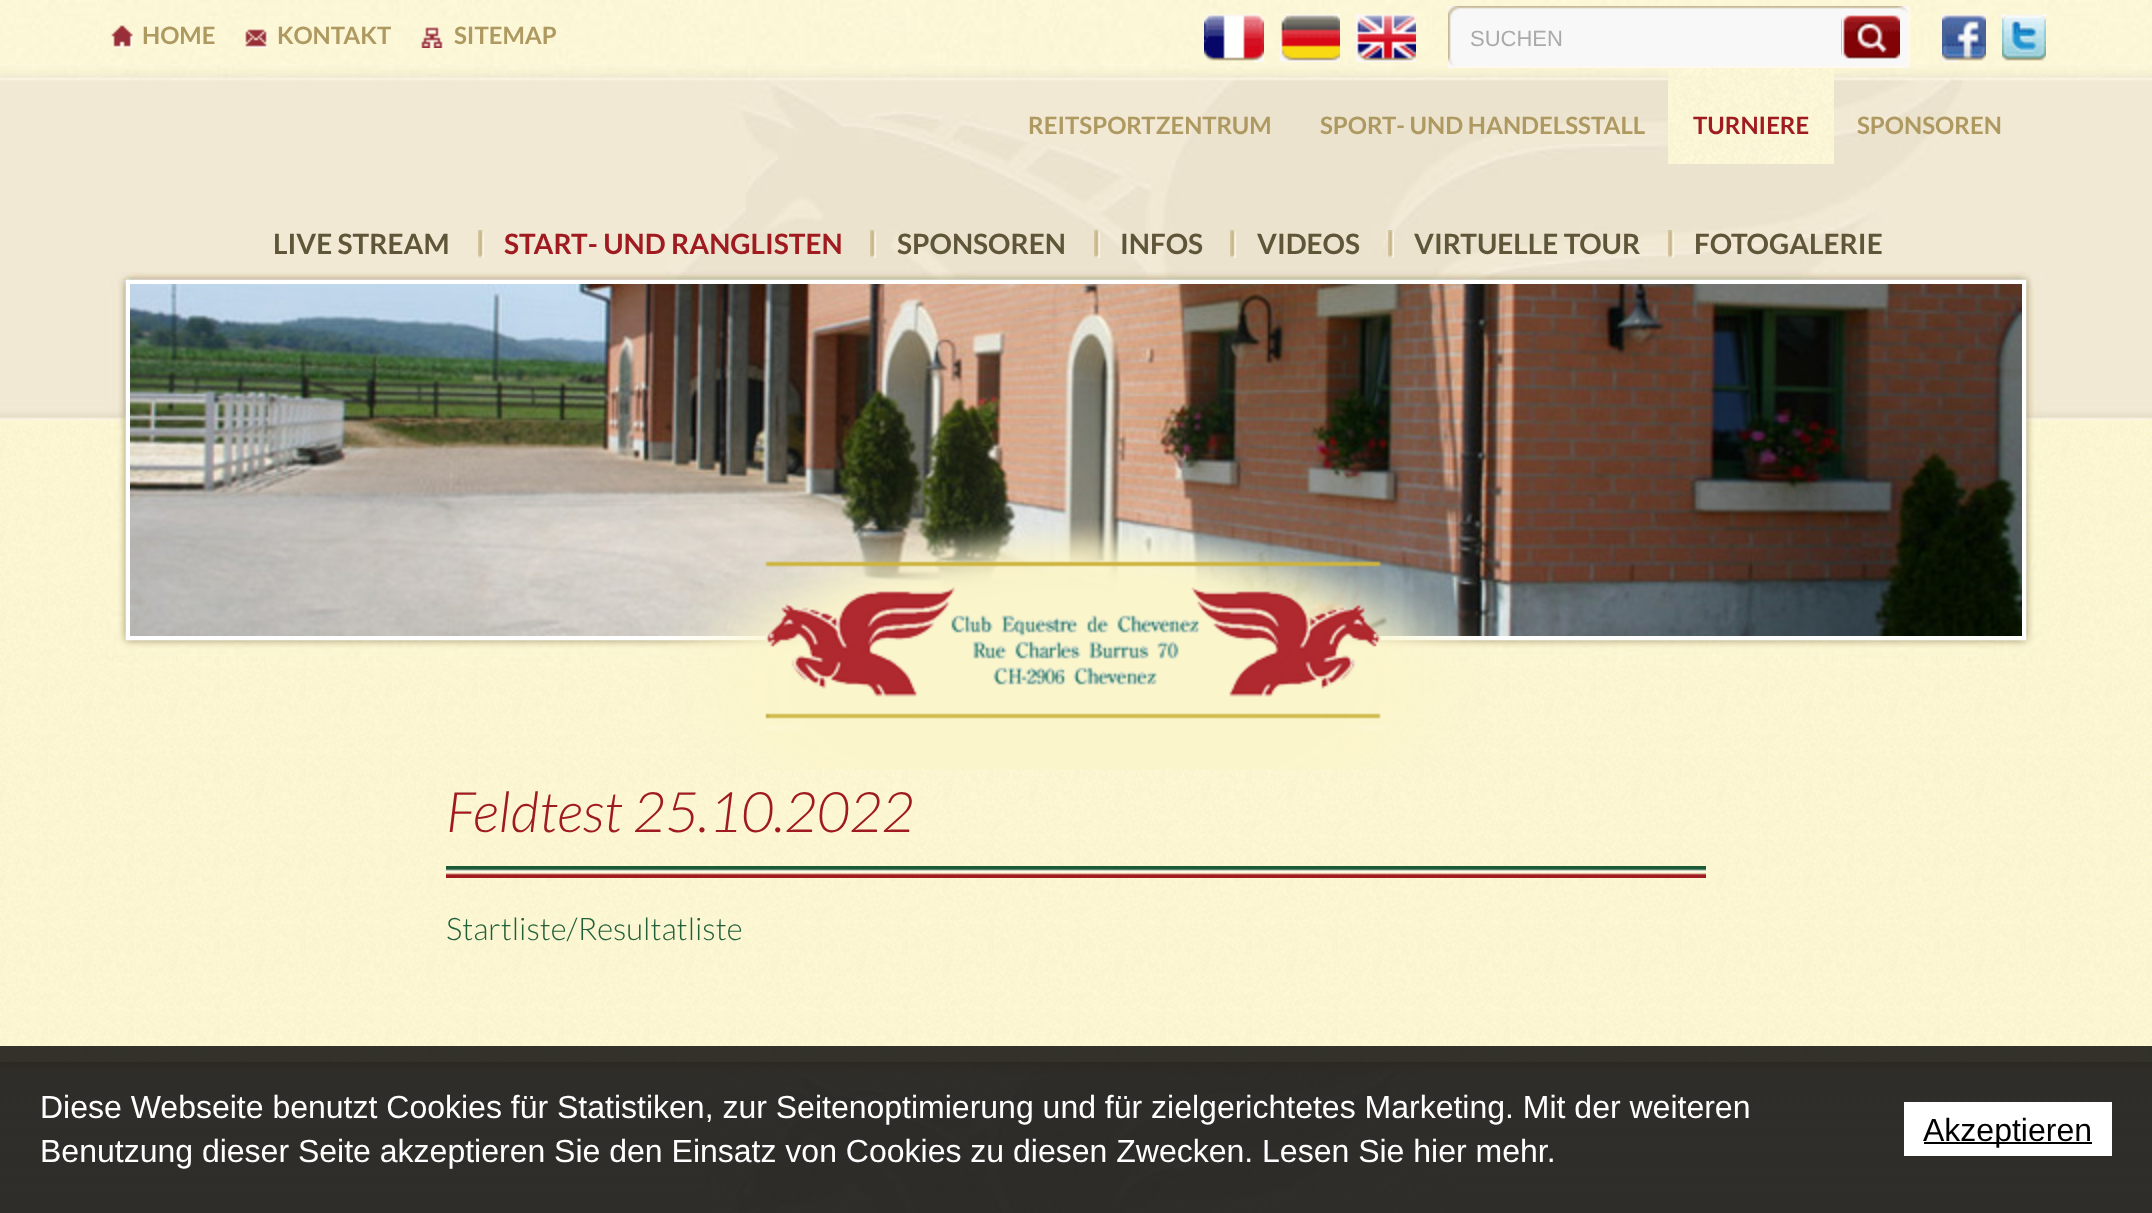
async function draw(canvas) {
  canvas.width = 2152
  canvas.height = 1213
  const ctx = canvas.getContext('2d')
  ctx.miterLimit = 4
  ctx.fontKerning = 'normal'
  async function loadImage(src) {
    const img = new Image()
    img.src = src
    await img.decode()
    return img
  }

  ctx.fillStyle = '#fff'
  ctx.fillRect(0, 0, 2152, 1213)
  ctx.drawImage(await loadImage('image0.png'), 0, 422, 2152, 640)
  ctx.drawImage(await loadImage('image1.png'), 0, 0, 2152, 422)
  ctx.drawImage(await loadImage('image2.png'), 106, 0, 1940, 662)
  ctx.drawImage(await loadImage('image3.png'), 111, 25, 24, 23)
  ctx.font = 'bold 24px Lato'
  ctx.fillStyle = '#ae9961'
  ctx.fillText('HOME', 142, 44)
  ctx.drawImage(await loadImage('image4.png'), 245, 29, 24, 19)
  ctx.fillText('KONTAKT', 277, 44)
  ctx.drawImage(await loadImage('image5.png'), 421, 27, 24, 21)
  ctx.fillText('SITEMAP', 454, 44)
  ctx.drawImage(await loadImage('image6.png'), 1204, 14, 60, 48)
  ctx.drawImage(await loadImage('image7.png'), 1280, 14, 60, 48)
  ctx.drawImage(await loadImage('image8.png'), 1356, 14, 60, 48)
  ctx.drawImage(await loadImage('image9.png'), 1448, 6, 462, 62)
  ctx.font = '22px Liberation Sans'
  ctx.fillStyle = '#aaa'
  ctx.fillText('SUCHEN', 1470, 46)
  ctx.drawImage(await loadImage('image10.png'), 1842, 15, 58, 45)
  ctx.drawImage(await loadImage('image11.png'), 1942, 14, 44, 48)
  ctx.drawImage(await loadImage('image12.png'), 2002, 14, 44, 47)
  ctx.font = 'bold 24px Lato'
  ctx.fillStyle = '#ae9961'
  ctx.fillText('REITSPORTZENTRUM', 1028, 134)
  ctx.fillText('SPORT- UND HANDELSSTALL', 1320, 134)
  ctx.drawImage(await loadImage('image13.png'), 1668, 68, 166, 96)
  ctx.fillStyle = '#9f1b20'
  ctx.fillText('TURNIERE', 1693, 134)
  ctx.fillStyle = '#ae9961'
  ctx.fillText('SPONSOREN', 1857, 134)
  ctx.font = 'bold 28px Lato'
  ctx.fillStyle = '#5f5539'
  ctx.fillText('LIVE STREAM', 273, 254)
  ctx.drawImage(await loadImage('image14.png'), 478, 230, 6, 28)
  ctx.fillStyle = '#9f1b20'
  ctx.fillText('START- UND RANGLISTEN', 504, 254)
  ctx.drawImage(await loadImage('image14.png'), 870, 230, 6, 28)
  ctx.fillStyle = '#5f5539'
  ctx.fillText('SPONSOREN', 897, 254)
  ctx.drawImage(await loadImage('image14.png'), 1094, 230, 6, 28)
  ctx.fillText('INFOS', 1120, 254)
  ctx.drawImage(await loadImage('image14.png'), 1230, 230, 6, 28)
  ctx.fillText('VIDEOS', 1257, 254)
  ctx.drawImage(await loadImage('image14.png'), 1388, 230, 6, 28)
  ctx.fillText('VIRTUELLE TOUR', 1414, 254)
  ctx.drawImage(await loadImage('image14.png'), 1668, 230, 6, 28)
  ctx.fillText('FOTOGALERIE', 1694, 254)
  ctx.strokeStyle = '#fff'
  ctx.lineWidth = 4
  ctx.strokeRect(128, 282, 1896, 356)
  ctx.drawImage(await loadImage('image15.png'), 130, 284, 1892, 352)
  ctx.drawImage(await loadImage('image16.png'), 669, 520, 822, 250)
  ctx.drawImage(await loadImage('image17.png'), 446, 866, 1260, 12)
  ctx.font = 'italic 300 55.9px Lato'
  ctx.fillStyle = '#9f1b20'
  ctx.fillText('Feldtest 25.10.2022', 446, 832)
  ctx.font = '300 31px Lato'
  ctx.fillStyle = '#1f603b'
  ctx.fillText('Startliste/Resultatliste', 446, 940)
  ctx.drawImage(await loadImage('image18.png'), 0, 1062, 2152, 151)
  ctx.drawImage(await loadImage('image19.png'), 700, 1062, 752, 151)
  ctx.fillStyle = '#000000cc'
  ctx.fillRect(0, 1046, 2152, 167)
  ctx.font = '32px Liberation Sans'
  ctx.fillStyle = '#fff'
  ctx.fillText('Diese Webseite benutzt Cookies für Statistiken, zur Seitenoptimierung und für zielgerichtetes Marketing. Mit der weiteren', 40, 1118)
  ctx.fillText('Benutzung dieser Seite akzeptieren Sie den Einsatz von Cookies zu diesen Zwecken. Lesen Sie hier mehr.', 40, 1162)
  ctx.fillRect(1904, 1102, 208, 54)
  ctx.fillStyle = '#000'
  ctx.fillRect(1924, 1142, 168, 2)
  ctx.fillText('Akzeptieren', 1923, 1141)
}

draw(document.querySelector('canvas'))
